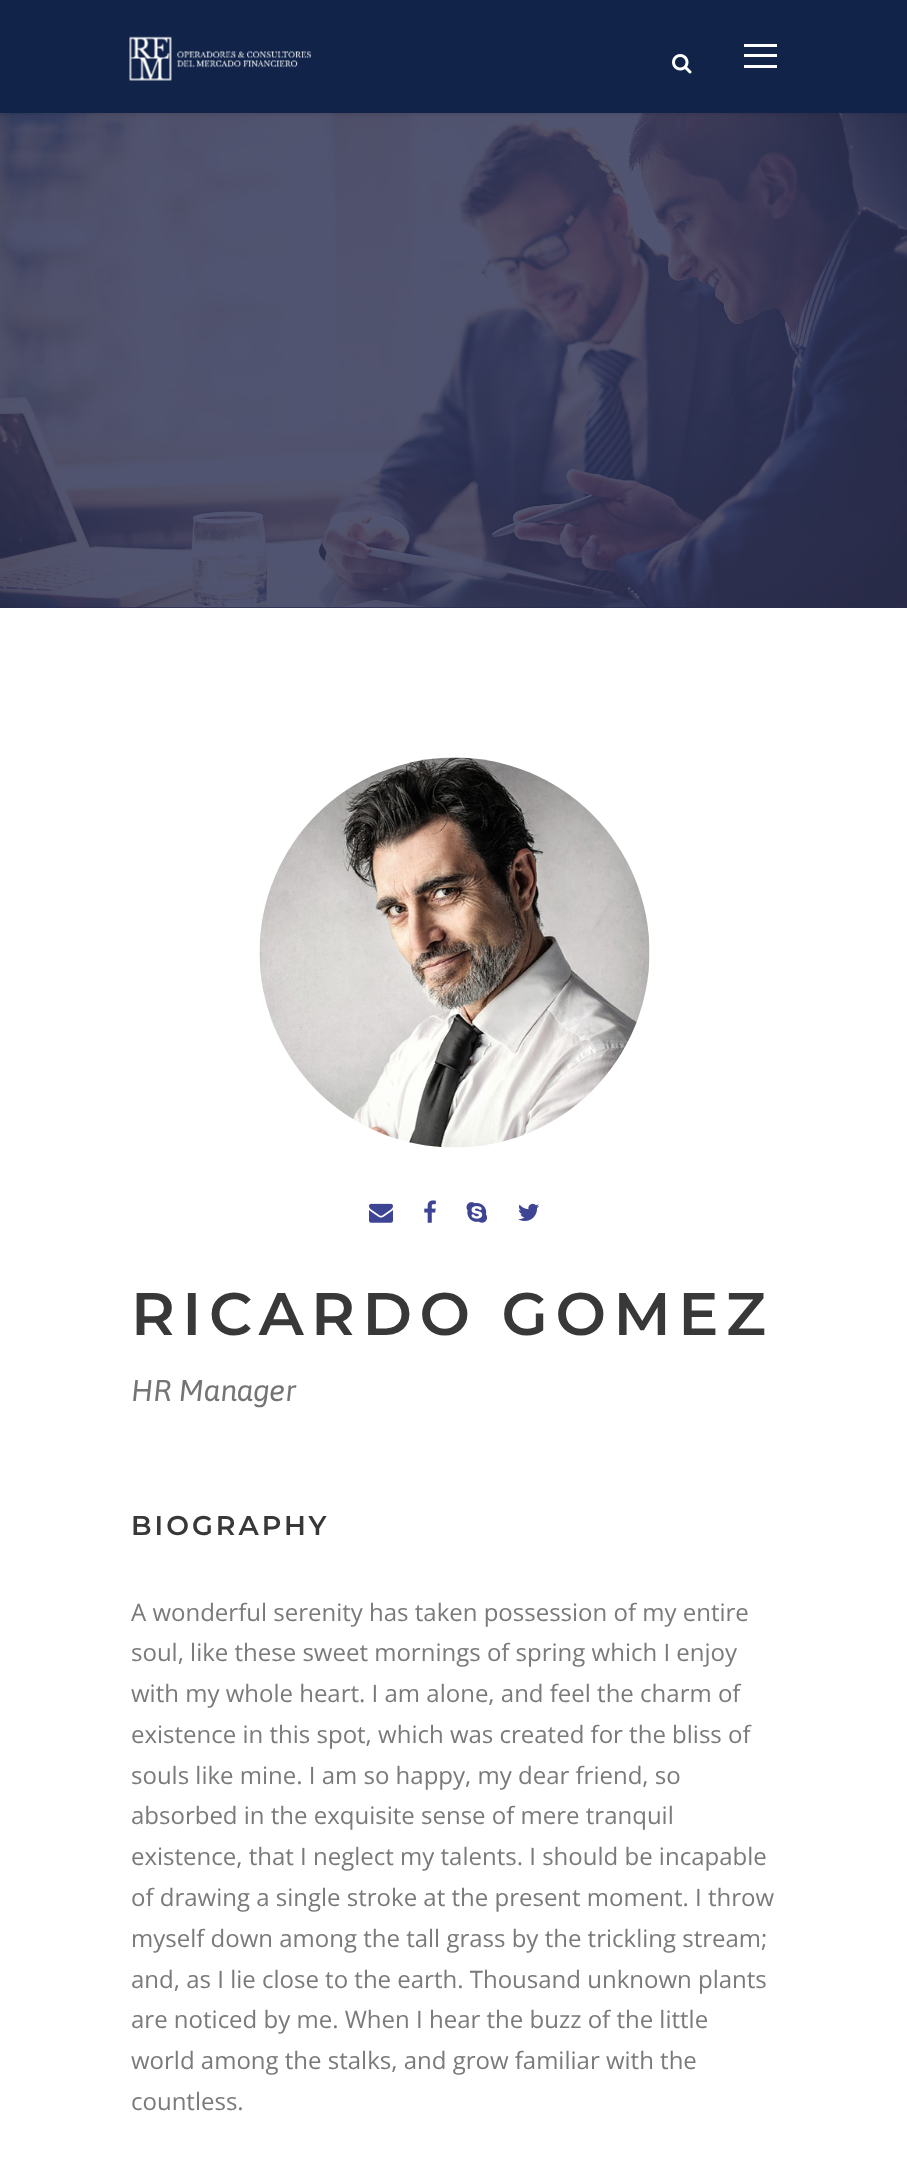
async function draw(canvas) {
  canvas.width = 907
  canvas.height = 2171
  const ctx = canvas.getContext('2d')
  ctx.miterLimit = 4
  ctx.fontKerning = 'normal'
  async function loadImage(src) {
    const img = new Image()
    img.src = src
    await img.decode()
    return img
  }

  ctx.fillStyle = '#fff'
  ctx.fillRect(0, 0, 907, 2171)
  ctx.fillStyle = '#2a2e51'
  ctx.fillRect(0, 113, 907, 495)
  ctx.drawImage(await loadImage('image2.png'), 0, 113, 907, 495)
  ctx.fillStyle = '#0000001a'
  ctx.filter = 'blur(1.5px)'
  ctx.beginPath()
  ctx.rect(0, 2, 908, 112)
  ctx.fill()
  ctx.filter = 'none'
  ctx.fillStyle = '#112349'
  ctx.fillRect(0, 0, 907, 113)
  ctx.drawImage(await loadImage('image0.png'), 129, 36, 183, 45)
  ctx.drawImage(await loadImage('image1.png'), 672, 54, 20, 20)
  ctx.fillStyle = '#fff'
  ctx.fillRect(744, 44, 33, 3)
  ctx.fillRect(744, 54, 33, 3)
  ctx.fillRect(744, 65, 33, 3)
  ctx.drawImage(await loadImage('image3.png'), 259, 757, 391, 391)
  ctx.drawImage(await loadImage('image4.png'), 369, 1203, 24, 20)
  ctx.drawImage(await loadImage('image5.png'), 424, 1200, 12, 23)
  ctx.drawImage(await loadImage('image6.png'), 466, 1202, 22, 21)
  ctx.drawImage(await loadImage('image7.png'), 518, 1203, 21, 18)
  ctx.letterSpacing = '7.5px'
  ctx.font = '600 60px Montserrat'
  ctx.fillStyle = '#383838'
  ctx.fillText('RICARDO GOMEZ', 131, 1335)
  ctx.letterSpacing = '0px'
  ctx.font = 'italic 30px Asap'
  ctx.fillStyle = '#747474'
  ctx.fillText('HR Manager', 131, 1401)
  ctx.letterSpacing = '3px'
  ctx.font = '600 27px Montserrat'
  ctx.fillStyle = '#383838'
  ctx.fillText('BIOGRAPHY', 131, 1535)
  ctx.letterSpacing = '0px'
  ctx.font = '24px Open Sans'
  ctx.fillStyle = '#7a7a7a'
  ctx.fillText('A wonderful serenity has taken possession of my entire', 131, 1621)
  ctx.fillText('soul, like these sweet mornings of spring which I enjoy', 131, 1661)
  ctx.fillText('with my whole heart. I am alone, and feel the charm of', 131, 1702)
  ctx.fillText('existence in this spot, which was created for the bliss of', 131, 1743)
  ctx.fillText('souls like mine. I am so happy, my dear friend, so', 131, 1784)
  ctx.fillText('absorbed in the exquisite sense of mere tranquil', 131, 1824)
  ctx.fillText('existence, that I neglect my talents. I should be incapable', 131, 1865)
  ctx.fillText('of drawing a single stroke at the present moment. I throw', 131, 1906)
  ctx.fillText('myself down among the tall grass by the trickling stream;', 131, 1947)
  ctx.fillText('and, as I lie close to the earth. Thousand unknown plants', 131, 1988)
  ctx.fillText('are noticed by me. When I hear the buzz of the little', 131, 2028)
  ctx.fillText('world among the stalks, and grow familiar with the', 131, 2069)
  ctx.fillText('countless.', 131, 2110)
}

draw(document.querySelector('canvas'))
